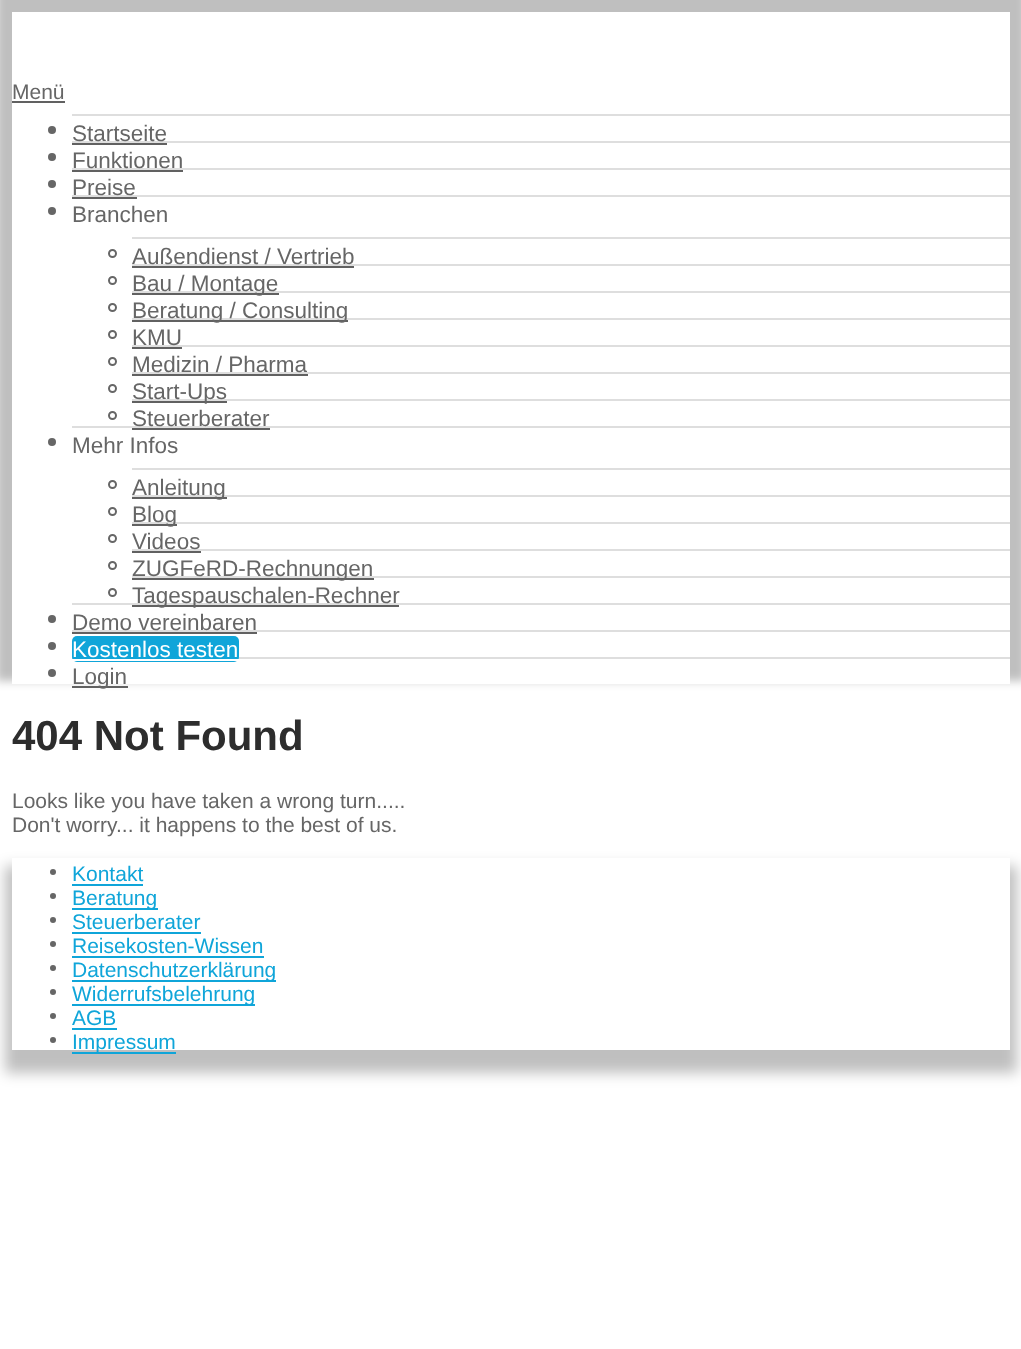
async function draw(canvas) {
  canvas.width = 1021
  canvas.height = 1349
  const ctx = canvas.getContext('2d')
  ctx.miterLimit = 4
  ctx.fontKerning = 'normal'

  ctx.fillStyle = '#fff'
  ctx.fillRect(0, 0, 1021, 1349)
  ctx.fillStyle = '#00000040'
  ctx.filter = 'blur(5px)'
  ctx.beginPath()
  ctx.rect(-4, -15, 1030, 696)
  ctx.fill()
  ctx.filter = 'none'
  ctx.fillStyle = '#fff'
  ctx.fillRect(12, 12, 998, 672)
  ctx.font = '21px Liberation Sans'
  ctx.fillStyle = '#666'
  ctx.fillText('Menü', 12, 99)
  ctx.fillStyle = '#616161'
  ctx.fillRect(12, 101, 53, 2)
  ctx.fillStyle = '#dedede'
  ctx.fillRect(72, 114, 938, 2)
  ctx.fillStyle = '#666'
  ctx.beginPath()
  ctx.arc(52, 130, 4, 0, 2 * Math.PI)
  ctx.fill()
  ctx.fillStyle = '#dedede'
  ctx.fillRect(72, 141, 938, 2)
  ctx.font = '22.5px Liberation Sans'
  ctx.fillStyle = '#666'
  ctx.fillText('Startseite', 72, 141)
  ctx.fillStyle = '#616161'
  ctx.fillRect(72, 143, 95, 2)
  ctx.fillStyle = '#666'
  ctx.beginPath()
  ctx.arc(52, 157, 4, 0, 2 * Math.PI)
  ctx.fill()
  ctx.fillStyle = '#dedede'
  ctx.fillRect(72, 168, 938, 2)
  ctx.fillStyle = '#666'
  ctx.fillText('Funktionen', 72, 168)
  ctx.fillStyle = '#616161'
  ctx.fillRect(72, 170, 111, 2)
  ctx.fillStyle = '#666'
  ctx.beginPath()
  ctx.arc(52, 184, 4, 0, 2 * Math.PI)
  ctx.fill()
  ctx.fillStyle = '#dedede'
  ctx.fillRect(72, 195, 938, 2)
  ctx.fillStyle = '#666'
  ctx.fillText('Preise', 72, 195)
  ctx.fillStyle = '#616161'
  ctx.fillRect(72, 197, 65, 2)
  ctx.fillStyle = '#666'
  ctx.beginPath()
  ctx.arc(52, 211, 4, 0, 2 * Math.PI)
  ctx.fill()
  ctx.fillText('Branchen', 72, 222)
  ctx.fillStyle = '#dedede'
  ctx.fillRect(132, 237, 878, 2)
  ctx.beginPath()
  ctx.arc(112.5, 253.5, 3.5, 0, 2 * Math.PI)
  ctx.strokeStyle = '#666'
  ctx.lineWidth = 2
  ctx.stroke()
  ctx.fillRect(132, 264, 878, 2)
  ctx.fillStyle = '#666'
  ctx.fillText('Außendienst / Vertrieb', 132, 264)
  ctx.fillStyle = '#616161'
  ctx.fillRect(132, 266, 222, 2)
  ctx.beginPath()
  ctx.arc(112.5, 280.5, 3.5, 0, 2 * Math.PI)
  ctx.stroke()
  ctx.fillRect(132, 293, 147, 2)
  ctx.fillStyle = '#dedede'
  ctx.fillRect(132, 291, 878, 2)
  ctx.fillStyle = '#666'
  ctx.fillText('Bau / Montage', 132, 291)
  ctx.beginPath()
  ctx.arc(112.5, 307.5, 3.5, 0, 2 * Math.PI)
  ctx.stroke()
  ctx.fillStyle = '#616161'
  ctx.fillRect(132, 320, 216, 2)
  ctx.fillStyle = '#dedede'
  ctx.fillRect(132, 318, 878, 2)
  ctx.fillStyle = '#666'
  ctx.fillText('Beratung / Consulting', 132, 318)
  ctx.beginPath()
  ctx.arc(112.5, 334.5, 3.5, 0, 2 * Math.PI)
  ctx.stroke()
  ctx.fillStyle = '#dedede'
  ctx.fillRect(132, 345, 878, 2)
  ctx.fillStyle = '#666'
  ctx.fillText('KMU', 132, 345)
  ctx.fillStyle = '#616161'
  ctx.fillRect(132, 347, 50, 2)
  ctx.beginPath()
  ctx.arc(112.5, 361.5, 3.5, 0, 2 * Math.PI)
  ctx.stroke()
  ctx.fillStyle = '#dedede'
  ctx.fillRect(132, 372, 878, 2)
  ctx.fillStyle = '#666'
  ctx.fillText('Medizin / Pharma', 132, 372)
  ctx.fillStyle = '#616161'
  ctx.fillRect(132, 374, 176, 2)
  ctx.beginPath()
  ctx.arc(112.5, 388.5, 3.5, 0, 2 * Math.PI)
  ctx.stroke()
  ctx.fillRect(132, 401, 95, 2)
  ctx.fillStyle = '#dedede'
  ctx.fillRect(132, 399, 878, 2)
  ctx.fillStyle = '#666'
  ctx.fillText('Start-Ups', 132, 399)
  ctx.beginPath()
  ctx.arc(112.5, 415.5, 3.5, 0, 2 * Math.PI)
  ctx.stroke()
  ctx.fillStyle = '#dedede'
  ctx.fillRect(72, 426, 938, 2)
  ctx.fillStyle = '#666'
  ctx.fillText('Steuerberater', 132, 426)
  ctx.fillStyle = '#616161'
  ctx.fillRect(132, 428, 138, 2)
  ctx.fillStyle = '#666'
  ctx.beginPath()
  ctx.arc(52, 442, 4, 0, 2 * Math.PI)
  ctx.fill()
  ctx.fillText('Mehr Infos', 72, 453)
  ctx.fillStyle = '#dedede'
  ctx.fillRect(132, 468, 878, 2)
  ctx.beginPath()
  ctx.arc(112.5, 484.5, 3.5, 0, 2 * Math.PI)
  ctx.stroke()
  ctx.fillStyle = '#616161'
  ctx.fillRect(132, 497, 95, 2)
  ctx.fillStyle = '#dedede'
  ctx.fillRect(132, 495, 878, 2)
  ctx.fillStyle = '#666'
  ctx.fillText('Anleitung', 132, 495)
  ctx.beginPath()
  ctx.arc(112.5, 511.5, 3.5, 0, 2 * Math.PI)
  ctx.stroke()
  ctx.fillStyle = '#616161'
  ctx.fillRect(132, 524, 45, 2)
  ctx.fillStyle = '#dedede'
  ctx.fillRect(132, 522, 878, 2)
  ctx.fillStyle = '#666'
  ctx.fillText('Blog', 132, 522)
  ctx.beginPath()
  ctx.arc(112.5, 538.5, 3.5, 0, 2 * Math.PI)
  ctx.stroke()
  ctx.fillStyle = '#dedede'
  ctx.fillRect(132, 549, 878, 2)
  ctx.fillStyle = '#666'
  ctx.fillText('Videos', 132, 549)
  ctx.fillStyle = '#616161'
  ctx.fillRect(132, 551, 69, 2)
  ctx.beginPath()
  ctx.arc(112.5, 565.5, 3.5, 0, 2 * Math.PI)
  ctx.stroke()
  ctx.fillRect(132, 578, 242, 2)
  ctx.fillStyle = '#dedede'
  ctx.fillRect(132, 576, 878, 2)
  ctx.fillStyle = '#666'
  ctx.fillText('ZUGFeRD-Rechnungen', 132, 576)
  ctx.beginPath()
  ctx.arc(112.5, 592.5, 3.5, 0, 2 * Math.PI)
  ctx.stroke()
  ctx.fillStyle = '#616161'
  ctx.fillRect(132, 605, 267, 2)
  ctx.fillStyle = '#dedede'
  ctx.fillRect(72, 603, 938, 2)
  ctx.fillStyle = '#666'
  ctx.fillText('Tagespauschalen-Rechner', 132, 603)
  ctx.beginPath()
  ctx.arc(52, 619, 4, 0, 2 * Math.PI)
  ctx.fill()
  ctx.fillStyle = '#dedede'
  ctx.fillRect(72, 630, 938, 2)
  ctx.fillStyle = '#666'
  ctx.fillText('Demo vereinbaren', 72, 630)
  ctx.fillStyle = '#616161'
  ctx.fillRect(72, 632, 185, 2)
  ctx.fillStyle = '#666'
  ctx.beginPath()
  ctx.arc(52, 646, 4, 0, 2 * Math.PI)
  ctx.fill()
  ctx.fillStyle = '#dedede'
  ctx.fillRect(72, 657, 938, 2)
  ctx.fillStyle = '#0fa5d9'
  ctx.beginPath()
  ctx.roundRect(72, 636, 167, 26, 5)
  ctx.fill()
  ctx.fillStyle = '#fff'
  ctx.fillText('Kostenlos testen', 72, 657)
  ctx.fillRect(72, 659, 167, 2)
  ctx.fillStyle = '#666'
  ctx.beginPath()
  ctx.arc(52, 673, 4, 0, 2 * Math.PI)
  ctx.fill()
  ctx.fillStyle = '#616161'
  ctx.fillRect(72, 686, 56, 2)
  ctx.fillStyle = '#666'
  ctx.fillText('Login', 72, 684)
  ctx.font = 'bold 42px Liberation Sans'
  ctx.fillStyle = '#2d2d2d'
  ctx.fillText('404 Not Found', 12, 750)
  ctx.font = '21px Liberation Sans'
  ctx.fillStyle = '#666'
  ctx.fillText('Looks like you have taken a wrong turn.....', 12, 808)
  ctx.fillText('Don\'t worry... it happens to the best of us.', 12, 832)
  ctx.fillStyle = '#00000040'
  ctx.filter = 'blur(7px)'
  ctx.beginPath()
  ctx.rect(5, 866, 1012, 207)
  ctx.fill()
  ctx.filter = 'none'
  ctx.fillStyle = '#fff'
  ctx.fillRect(12, 858, 998, 192)
  ctx.fillStyle = '#666'
  ctx.beginPath()
  ctx.arc(53, 872, 3, 0, 2 * Math.PI)
  ctx.fill()
  ctx.fillStyle = '#0fa5d9'
  ctx.fillText('Kontakt', 72, 881)
  ctx.fillRect(72, 884, 71, 2)
  ctx.fillStyle = '#666'
  ctx.beginPath()
  ctx.arc(53, 896, 3, 0, 2 * Math.PI)
  ctx.fill()
  ctx.fillStyle = '#0fa5d9'
  ctx.fillRect(72, 908, 86, 2)
  ctx.fillText('Beratung', 72, 905)
  ctx.fillStyle = '#666'
  ctx.beginPath()
  ctx.arc(53, 920, 3, 0, 2 * Math.PI)
  ctx.fill()
  ctx.fillStyle = '#0fa5d9'
  ctx.fillText('Steuerberater', 72, 929)
  ctx.fillRect(72, 932, 129, 2)
  ctx.fillStyle = '#666'
  ctx.beginPath()
  ctx.arc(53, 944, 3, 0, 2 * Math.PI)
  ctx.fill()
  ctx.fillStyle = '#0fa5d9'
  ctx.fillText('Reisekosten-Wissen', 72, 953)
  ctx.fillRect(72, 956, 192, 2)
  ctx.fillStyle = '#666'
  ctx.beginPath()
  ctx.arc(53, 968, 3, 0, 2 * Math.PI)
  ctx.fill()
  ctx.fillStyle = '#0fa5d9'
  ctx.fillRect(72, 980, 204, 2)
  ctx.fillText('Datenschutzerklärung', 72, 977)
  ctx.fillStyle = '#666'
  ctx.beginPath()
  ctx.arc(53, 992, 3, 0, 2 * Math.PI)
  ctx.fill()
  ctx.fillStyle = '#0fa5d9'
  ctx.fillRect(72, 1004, 183, 2)
  ctx.fillText('Widerrufsbelehrung', 72, 1001)
  ctx.fillStyle = '#666'
  ctx.beginPath()
  ctx.arc(53, 1016, 3, 0, 2 * Math.PI)
  ctx.fill()
  ctx.fillStyle = '#0fa5d9'
  ctx.fillText('AGB', 72, 1025)
  ctx.fillRect(72, 1028, 45, 2)
  ctx.fillStyle = '#666'
  ctx.beginPath()
  ctx.arc(53, 1040, 3, 0, 2 * Math.PI)
  ctx.fill()
  ctx.fillStyle = '#0fa5d9'
  ctx.fillRect(72, 1052, 104, 2)
  ctx.fillText('Impressum', 72, 1049)
}

draw(document.querySelector('canvas'))
